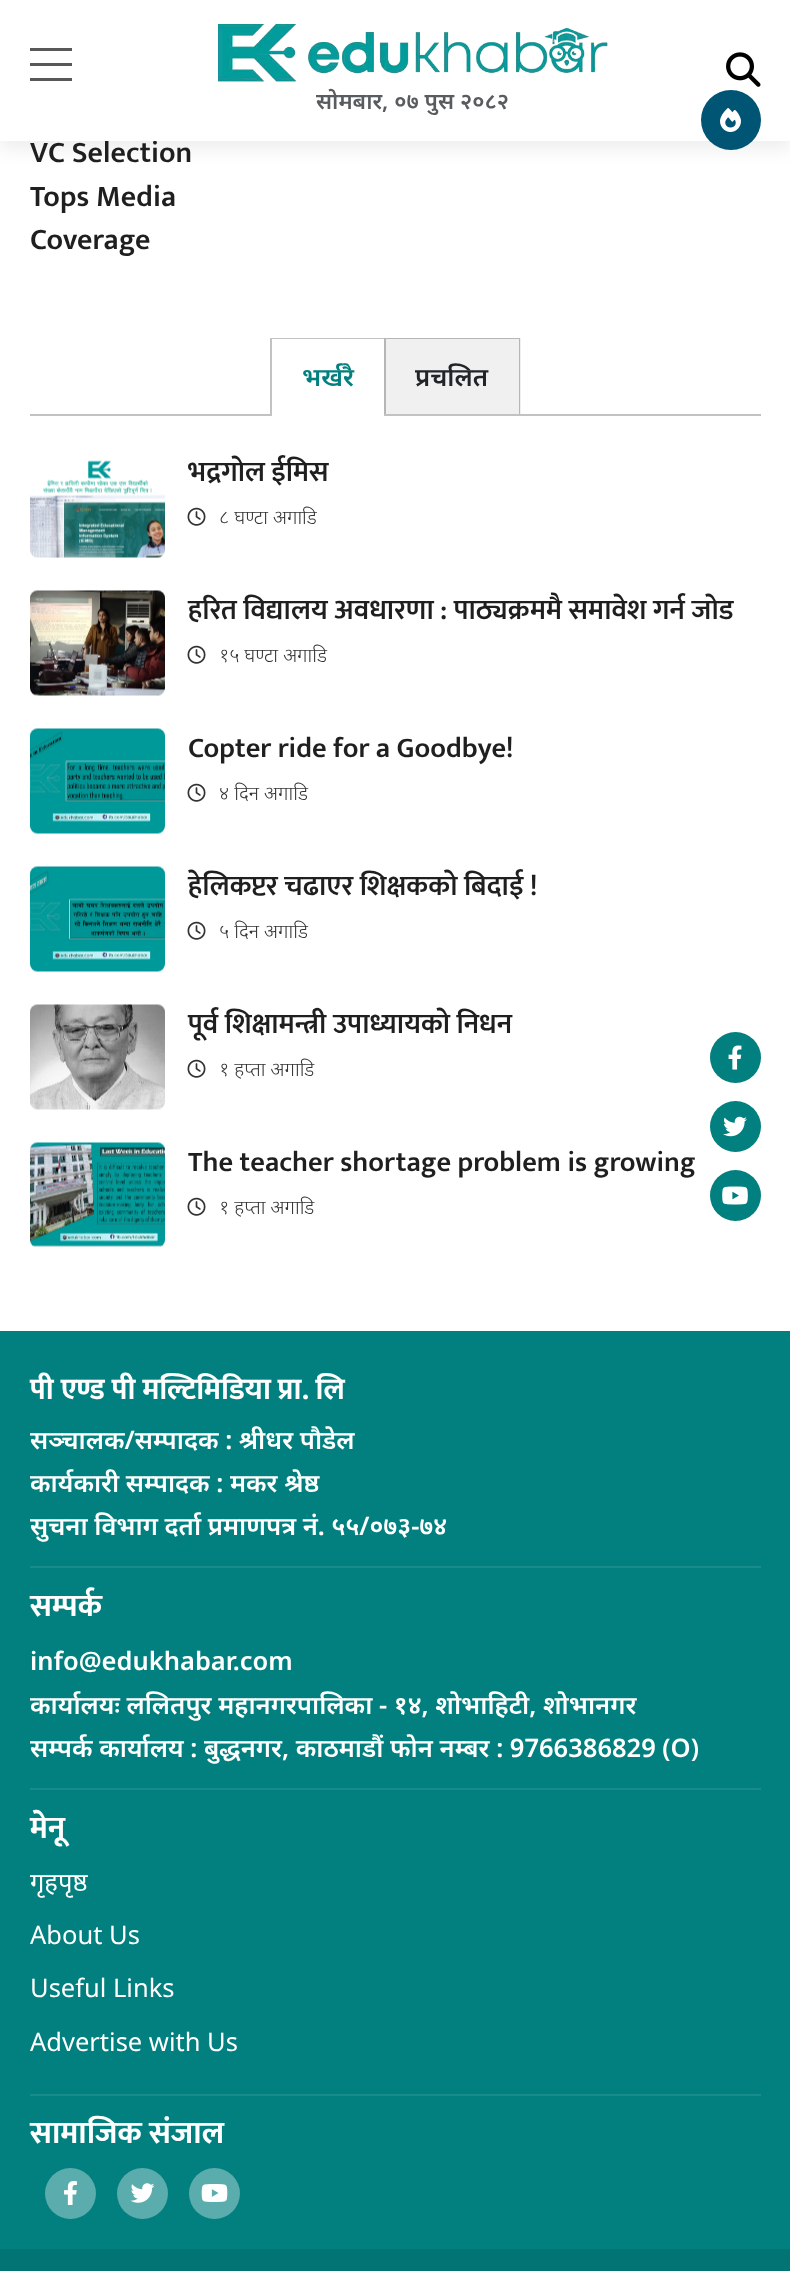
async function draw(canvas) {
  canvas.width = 790
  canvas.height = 2271
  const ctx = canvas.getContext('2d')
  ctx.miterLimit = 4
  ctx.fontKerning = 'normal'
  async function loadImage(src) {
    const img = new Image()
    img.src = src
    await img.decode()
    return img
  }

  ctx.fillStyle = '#fff'
  ctx.fillRect(0, 0, 790, 2271)
  ctx.fillStyle = '#00000012'
  ctx.filter = 'blur(9px)'
  ctx.beginPath()
  ctx.rect(0, 8, 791, 141)
  ctx.fill()
  ctx.filter = 'none'
  ctx.font = '600 30px Mukta'
  ctx.fillStyle = '#1f1f1f'
  ctx.fillText('VC Selection', 30, 162)
  ctx.fillStyle = '#fff'
  ctx.fillRect(0, 0, 790, 141)
  ctx.fillStyle = '#585858'
  ctx.fillRect(30, 48, 42, 3)
  ctx.fillRect(30, 63, 42, 3)
  ctx.fillRect(30, 78, 42, 3)
  ctx.drawImage(await loadImage('image0.png'), 726, 52, 35, 35)
  ctx.drawImage(await loadImage('image1.png'), 218, 24, 390, 58)
  ctx.font = '600 22.5px Noto Sans'
  ctx.fillStyle = '#595c5f'
  ctx.fillText('सोमबार, ०७ पुस २०८२', 316, 109)
  ctx.fillStyle = '#005574'
  ctx.beginPath()
  ctx.arc(731, 120, 30, 0, 2 * Math.PI)
  ctx.fill()
  ctx.drawImage(await loadImage('image2.png'), 720, 108, 21, 24)
  ctx.font = '600 30px Mukta'
  ctx.fillStyle = '#1f1f1f'
  ctx.fillText('Tops Media', 30, 206)
  ctx.fillText('Coverage', 30, 249)
  ctx.fillStyle = '#c2c2c2'
  ctx.fillRect(30, 414, 731, 2)
  ctx.beginPath()
  ctx.moveTo(270, 338)
  ctx.lineTo(384, 338)
  ctx.lineTo(384, 339)
  ctx.lineTo(272, 339)
  ctx.closePath()
  ctx.fill()
  ctx.fillStyle = '#0000003d'
  ctx.beginPath()
  ctx.moveTo(270, 414)
  ctx.lineTo(270, 338)
  ctx.lineTo(272, 339)
  ctx.lineTo(272, 414)
  ctx.closePath()
  ctx.fill()
  ctx.font = '600 25.5px Noto Sans'
  ctx.fillStyle = '#027f7f'
  ctx.fillText('भर्खरै', 302, 386)
  ctx.fillStyle = '#fff'
  ctx.fillRect(272, 414, 112, 2)
  ctx.fillStyle = '#f0f0f0'
  ctx.fillRect(384, 338, 137, 76)
  ctx.fillStyle = '#b6b6b6'
  ctx.beginPath()
  ctx.moveTo(384, 338)
  ctx.lineTo(520, 338)
  ctx.lineTo(519, 339)
  ctx.lineTo(386, 339)
  ctx.closePath()
  ctx.fill()
  ctx.fillStyle = '#0000003d'
  ctx.beginPath()
  ctx.moveTo(520, 338)
  ctx.lineTo(520, 414)
  ctx.lineTo(519, 414)
  ctx.lineTo(519, 339)
  ctx.closePath()
  ctx.fill()
  ctx.beginPath()
  ctx.moveTo(384, 414)
  ctx.lineTo(384, 338)
  ctx.lineTo(386, 339)
  ctx.lineTo(386, 414)
  ctx.closePath()
  ctx.fill()
  ctx.fillStyle = '#212529'
  ctx.fillText('प्रचलित', 415, 386)
  ctx.drawImage(await loadImage('image3.png'), 30, 460, 135, 98)
  ctx.font = '600 28.5px Mukta'
  ctx.fillStyle = '#1f1f1f'
  ctx.fillText('भद्रगोल ईमिस', 188, 481)
  ctx.drawImage(await loadImage('image4.png'), 187, 507, 19, 19)
  ctx.font = '300 19.5px Noto Sans'
  ctx.fillStyle = '#333'
  ctx.fillText('८ घण्टा अगाडि', 219, 524)
  ctx.drawImage(await loadImage('image5.png'), 30, 590, 135, 106)
  ctx.font = '600 28.5px Mukta'
  ctx.fillStyle = '#1f1f1f'
  ctx.fillText('हरित विद्यालय अवधारणा : पाठ्यक्रममै समावेश गर्न जोड', 188, 619)
  ctx.drawImage(await loadImage('image4.png'), 187, 645, 19, 19)
  ctx.font = '300 19.5px Noto Sans'
  ctx.fillStyle = '#333'
  ctx.fillText('१५ घण्टा अगाडि', 219, 662)
  ctx.drawImage(await loadImage('image6.png'), 30, 728, 135, 106)
  ctx.font = '600 28.5px Mukta'
  ctx.fillStyle = '#1f1f1f'
  ctx.fillText('Copter ride for a Goodbye!', 188, 757)
  ctx.drawImage(await loadImage('image4.png'), 187, 783, 19, 19)
  ctx.font = '300 19.5px Noto Sans'
  ctx.fillStyle = '#333'
  ctx.fillText('४ दिन अगाडि', 219, 800)
  ctx.drawImage(await loadImage('image7.png'), 30, 866, 135, 106)
  ctx.font = '600 28.5px Mukta'
  ctx.fillStyle = '#1f1f1f'
  ctx.fillText('हेलिकप्टर चढाएर शिक्षकको बिदाई !', 188, 895)
  ctx.drawImage(await loadImage('image4.png'), 187, 921, 19, 19)
  ctx.font = '300 19.5px Noto Sans'
  ctx.fillStyle = '#333'
  ctx.fillText('५ दिन अगाडि', 219, 938)
  ctx.drawImage(await loadImage('image8.png'), 30, 1004, 135, 106)
  ctx.font = '600 28.5px Mukta'
  ctx.fillStyle = '#1f1f1f'
  ctx.fillText('पूर्व शिक्षामन्त्री उपाध्यायको निधन', 188, 1033)
  ctx.drawImage(await loadImage('image4.png'), 187, 1059, 19, 19)
  ctx.font = '300 19.5px Noto Sans'
  ctx.fillStyle = '#333'
  ctx.fillText('१ हप्ता अगाडि', 219, 1076)
  ctx.drawImage(await loadImage('image9.png'), 30, 1142, 135, 105)
  ctx.font = '600 28.5px Mukta'
  ctx.fillStyle = '#1f1f1f'
  ctx.fillText('The teacher shortage problem is growing', 188, 1171)
  ctx.drawImage(await loadImage('image4.png'), 187, 1197, 19, 19)
  ctx.font = '300 19.5px Noto Sans'
  ctx.fillStyle = '#333'
  ctx.fillText('१ हप्ता अगाडि', 219, 1214)
  ctx.fillStyle = '#027f7f'
  ctx.beginPath()
  ctx.arc(735.5, 1057.5, 25.5, 0, 2 * Math.PI)
  ctx.fill()
  ctx.drawImage(await loadImage('image10.png'), 728, 1045, 14, 25)
  ctx.beginPath()
  ctx.arc(735.5, 1126.5, 25.5, 0, 2 * Math.PI)
  ctx.fill()
  ctx.drawImage(await loadImage('image11.png'), 723, 1116, 24, 21)
  ctx.beginPath()
  ctx.arc(735.5, 1195.5, 25.5, 0, 2 * Math.PI)
  ctx.fill()
  ctx.drawImage(await loadImage('image12.png'), 722, 1186, 26, 19)
  ctx.fillRect(0, 1331, 790, 918)
  ctx.fillStyle = '#198b8b'
  ctx.fillRect(30, 1566, 731, 2)
  ctx.font = 'bold 30px Mukta'
  ctx.fillStyle = '#fff'
  ctx.fillText('पी एण्ड पी मल्टिमिडिया प्रा. लि', 30, 1399)
  ctx.font = '600 25.5px Noto Sans'
  ctx.fillText('सञ्चालक/सम्पादक : श्रीधर पौडेल', 30, 1449)
  ctx.fillText('कार्यकारी सम्पादक : मकर श्रेष्ठ', 30, 1492)
  ctx.fillText('सुचना विभाग दर्ता प्रमाणपत्र नं. ५५/०७३-७४', 30, 1535)
  ctx.fillStyle = '#198b8b'
  ctx.fillRect(30, 1788, 731, 2)
  ctx.font = 'bold 31.5px Mukta'
  ctx.fillStyle = '#fff'
  ctx.fillText('सम्पर्क', 30, 1616)
  ctx.font = '600 25.5px Noto Sans'
  ctx.fillText('info@edukhabar.com', 30, 1670)
  ctx.fillText('कार्यालयः ललितपुर महानगरपालिका - १४, शोभाहिटी, शोभानगर', 30, 1714)
  ctx.fillText('सम्पर्क कार्यालय : बुद्धनगर, काठमाडौं फोन नम्बर : 9766386829 (O)', 30, 1757)
  ctx.fillStyle = '#198b8b'
  ctx.fillRect(30, 2094, 731, 2)
  ctx.font = 'bold 31.5px Mukta'
  ctx.fillStyle = '#fff'
  ctx.fillText('मेनू', 30, 1838)
  ctx.font = '25.5px Noto Sans'
  ctx.fillText('गृहपृष्ठ', 30, 1891)
  ctx.fillText('About Us', 30, 1944)
  ctx.fillText('Useful Links', 30, 1997)
  ctx.fillText('Advertise with Us', 30, 2051)
  ctx.font = 'bold 31.5px Mukta'
  ctx.fillText('सामाजिक संजाल', 30, 2143)
  ctx.fillStyle = '#5bacac'
  ctx.beginPath()
  ctx.arc(70.5, 2193.5, 25.5, 0, 2 * Math.PI)
  ctx.fill()
  ctx.drawImage(await loadImage('image13.png'), 64, 2181, 13, 24)
  ctx.beginPath()
  ctx.arc(142.5, 2193.5, 25.5, 0, 2 * Math.PI)
  ctx.fill()
  ctx.drawImage(await loadImage('image14.png'), 130, 2183, 25, 20)
  ctx.beginPath()
  ctx.arc(214.5, 2193.5, 25.5, 0, 2 * Math.PI)
  ctx.fill()
  ctx.drawImage(await loadImage('image15.png'), 201, 2184, 27, 18)
  ctx.fillStyle = '#027474'
  ctx.fillRect(0, 2249, 790, 22)
}

draw(document.querySelector('canvas'))
